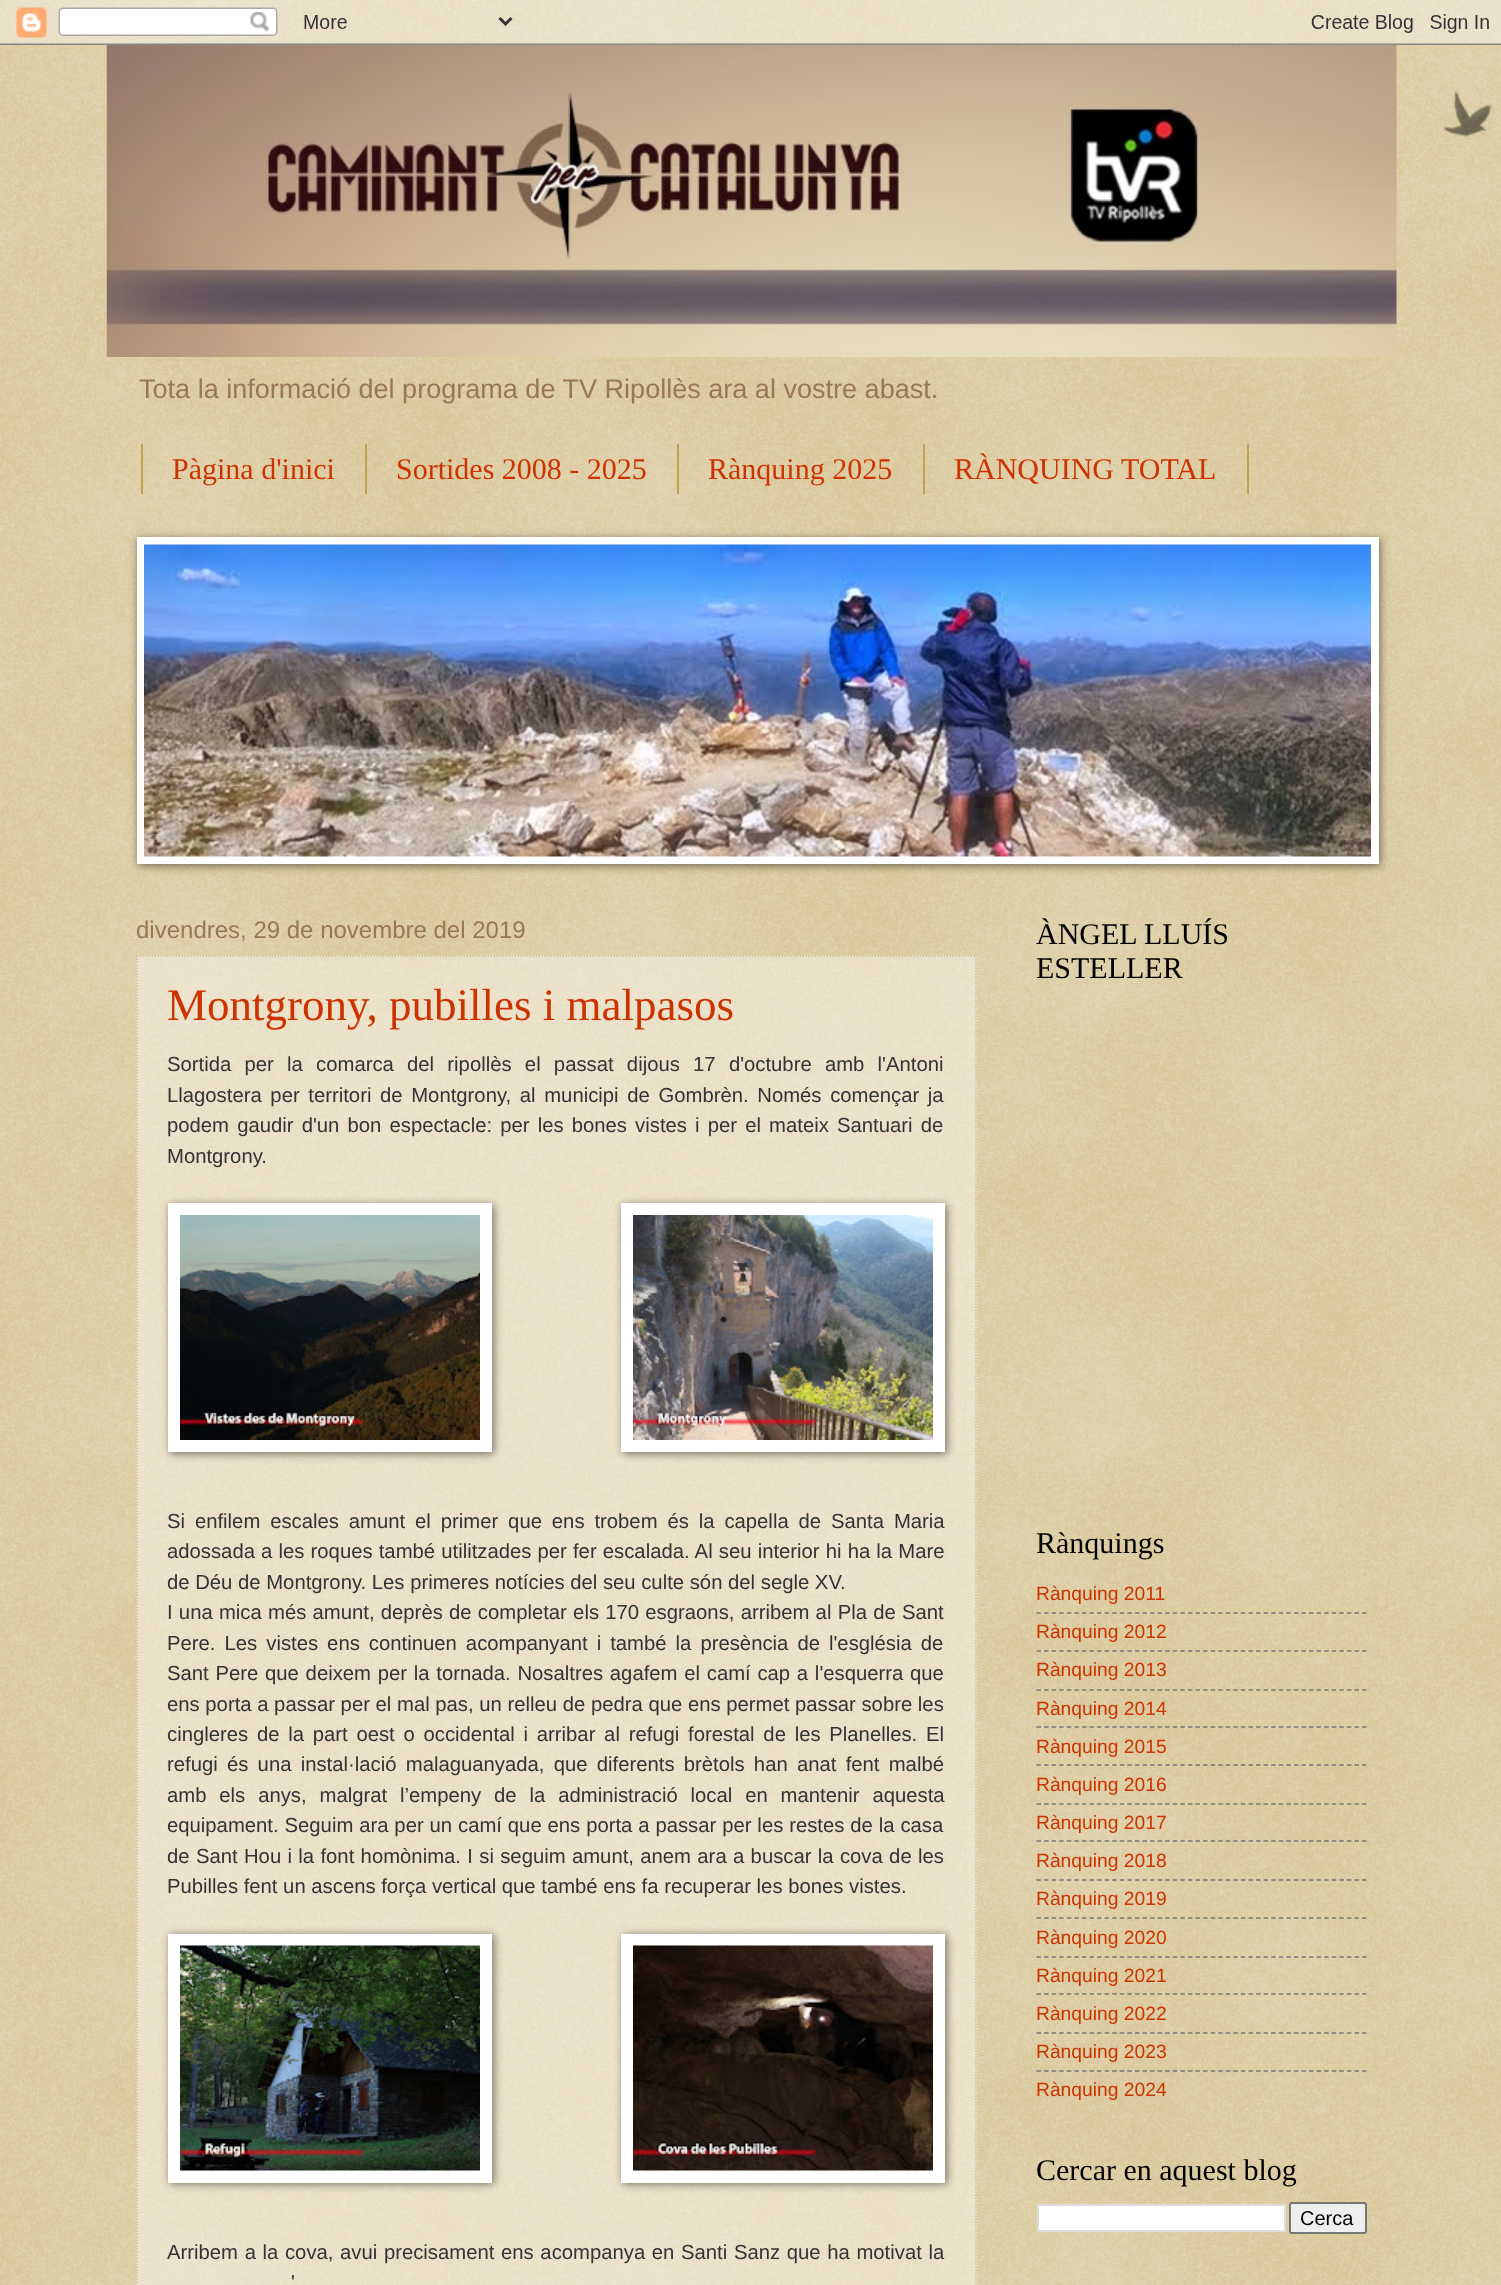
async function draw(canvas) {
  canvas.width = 1501
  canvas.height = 2285
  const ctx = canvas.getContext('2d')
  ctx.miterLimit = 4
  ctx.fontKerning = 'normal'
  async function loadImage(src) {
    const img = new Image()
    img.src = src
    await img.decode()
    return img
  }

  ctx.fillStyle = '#c0a154'
  ctx.fillRect(0, 0, 1501, 2285)
  ctx.drawImage(await loadImage('image0.png'), 0, 0, 1501, 2285)
  ctx.drawImage(await loadImage('image1.png'), 0, 0, 1501, 45)
  ctx.drawImage(await loadImage('image2.png'), 1444, 89, 49, 48)
  ctx.drawImage(await loadImage('image3.png'), 106, 45, 1291, 312)
  ctx.font = '27.05px Liberation Sans'
  ctx.fillStyle = '#975'
  ctx.fillText('Tota la informació del programa de TV Ripollès ara al vostre abast.', 139, 398)
  ctx.fillStyle = '#c0a154'
  ctx.fillRect(365, 444, 2, 50)
  ctx.fillRect(141, 444, 2, 50)
  ctx.font = '30px Liberation Serif'
  ctx.fillStyle = '#c30'
  ctx.fillText('Pàgina d\'inici', 172, 479)
  ctx.fillStyle = '#c0a154'
  ctx.fillRect(677, 444, 2, 50)
  ctx.fillStyle = '#c30'
  ctx.fillText('Sortides 2008 - 2025', 396, 479)
  ctx.fillStyle = '#c0a154'
  ctx.fillRect(923, 444, 2, 50)
  ctx.fillStyle = '#c30'
  ctx.fillText('Rànquing 2025', 708, 479)
  ctx.fillStyle = '#c0a154'
  ctx.fillRect(1247, 444, 2, 50)
  ctx.fillStyle = '#c30'
  ctx.fillText('RÀNQUING TOTAL', 954, 479)
  ctx.fillStyle = '#00000080'
  ctx.filter = 'blur(4px)'
  ctx.beginPath()
  ctx.rect(138, 539, 1242, 327)
  ctx.fill()
  ctx.filter = 'none'
  ctx.fillStyle = '#fff'
  ctx.fillRect(137, 537, 1242, 327)
  ctx.drawImage(await loadImage('image4.png'), 144, 544, 1227, 313)
  ctx.font = '24px Liberation Sans'
  ctx.fillStyle = '#975'
  ctx.fillText('divendres, 29 de novembre del 2019', 136, 938)
  ctx.fillStyle = '#ffffff66'
  ctx.fillRect(136, 955, 841, 1330)
  ctx.beginPath()
  ctx.moveTo(136.5, 956)
  ctx.lineTo(976.5, 956)
  ctx.strokeStyle = '#cb9'
  ctx.lineWidth = 1.5
  ctx.setLineDash([1.5, 1.5])
  ctx.stroke()
  ctx.beginPath()
  ctx.moveTo(976, 955.5)
  ctx.lineTo(976, 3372)
  ctx.stroke()
  ctx.beginPath()
  ctx.moveTo(137, 955.5)
  ctx.lineTo(137, 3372)
  ctx.stroke()
  ctx.font = '45px Liberation Serif'
  ctx.fillStyle = '#c30'
  ctx.fillText('Montgrony, pubilles i malpasos', 167, 1020)
  ctx.wordSpacing = '7.6px'
  ctx.font = '20.3px Liberation Sans'
  ctx.fillStyle = '#333'
  ctx.fillText('Sortida per la comarca del ripollès el passat dijous 17 d\'octubre amb l\'Antoni', 167, 1071)
  ctx.wordSpacing = '3px'
  ctx.fillText('Llagostera per territori de Montgrony, al municipi de Gombrèn. Només començar ja', 167, 1102)
  ctx.wordSpacing = '2.5px'
  ctx.fillText('podem gaudir d\'un bon espectacle: per les bones vistes i per el mateix Santuari de', 167, 1132)
  ctx.wordSpacing = '0px'
  ctx.fillText('Montgrony.', 167, 1163)
  ctx.fillStyle = '#00000080'
  ctx.filter = 'blur(4px)'
  ctx.beginPath()
  ctx.rect(170, 1205, 324, 249)
  ctx.fill()
  ctx.filter = 'none'
  ctx.fillStyle = '#fff'
  ctx.fillRect(168, 1203, 324, 249)
  ctx.drawImage(await loadImage('image5.png'), 180, 1215, 300, 225)
  ctx.fillStyle = '#00000080'
  ctx.filter = 'blur(4px)'
  ctx.beginPath()
  ctx.rect(623, 1205, 324, 249)
  ctx.fill()
  ctx.filter = 'none'
  ctx.fillStyle = '#fff'
  ctx.fillRect(621, 1203, 324, 249)
  ctx.drawImage(await loadImage('image6.png'), 633, 1215, 300, 225)
  ctx.wordSpacing = '4.25px'
  ctx.fillStyle = '#333'
  ctx.fillText('Si enfilem escales amunt el primer que ens trobem és la capella de Santa Maria', 167, 1528)
  ctx.wordSpacing = '0.5px'
  ctx.fillText('adossada a les roques també utilitzades per fer escalada. Al seu interior hi ha la Mare', 167, 1558)
  ctx.wordSpacing = '0px'
  ctx.fillText('de Déu de Montgrony. Les primeres notícies del seu culte són del segle XV.', 167, 1589)
  ctx.wordSpacing = '0.6px'
  ctx.fillText('I una mica més amunt, deprès de completar els 170 esgraons, arribem al Pla de Sant', 167, 1619)
  ctx.wordSpacing = '3.4px'
  ctx.fillText('Pere. Les vistes ens continuen acompanyant i també la presència de l\'església de', 167, 1650)
  ctx.wordSpacing = '1.1px'
  ctx.fillText('Sant Pere que deixem per la tornada. Nosaltres agafem el camí cap a l\'esquerra que', 167, 1680)
  ctx.wordSpacing = '0px'
  ctx.fillText('ens porta a passar per el mal pas, un relleu de pedra que ens permet passar sobre les', 167, 1711)
  ctx.wordSpacing = '3.1px'
  ctx.fillText('cingleres de la part oest o occidental i arribar al refugi forestal de les Planelles. El', 167, 1741)
  ctx.wordSpacing = '3.6px'
  ctx.fillText('refugi és una instal·lació malaguanyada, que diferents brètols han anat fent malbé', 167, 1771)
  ctx.wordSpacing = '7.25px'
  ctx.fillText('amb els anys, malgrat l’empeny de la administració local en mantenir aquesta', 167, 1802)
  ctx.wordSpacing = '0.25px'
  ctx.fillText('equipament. Seguim ara per un camí que ens porta a passar per les restes de la casa', 167, 1832)
  ctx.wordSpacing = '0.7px'
  ctx.fillText('de Sant Hou i la font homònima. I si seguim amunt, anem ara a buscar la cova de les', 167, 1863)
  ctx.wordSpacing = '0px'
  ctx.fillText('Pubilles fent un ascens força vertical que també ens fa recuperar les bones vistes.', 167, 1893)
  ctx.fillStyle = '#00000080'
  ctx.filter = 'blur(4px)'
  ctx.beginPath()
  ctx.rect(170, 1935, 324, 249)
  ctx.fill()
  ctx.filter = 'none'
  ctx.fillStyle = '#fff'
  ctx.fillRect(168, 1934, 324, 249)
  ctx.drawImage(await loadImage('image7.png'), 180, 1945, 300, 226)
  ctx.fillStyle = '#00000080'
  ctx.filter = 'blur(4px)'
  ctx.beginPath()
  ctx.rect(623, 1935, 324, 249)
  ctx.fill()
  ctx.filter = 'none'
  ctx.fillStyle = '#fff'
  ctx.fillRect(621, 1934, 324, 249)
  ctx.drawImage(await loadImage('image8.png'), 633, 1945, 300, 226)
  ctx.wordSpacing = '1px'
  ctx.fillStyle = '#333'
  ctx.fillText('Arribem a la cova, avui precisament ens acompanya en Santi Sanz que ha motivat la', 167, 2259)
  ctx.fillText('\'', 291, 2289)
  ctx.wordSpacing = '0px'
  ctx.font = '30px Liberation Serif'
  ctx.fillStyle = '#000'
  ctx.fillText('ÀNGEL LLUÍS', 1036, 944)
  ctx.fillText('ESTELLER', 1036, 978)
  ctx.fillText('Rànquings', 1036, 1553)
  ctx.font = '19.25px Liberation Sans'
  ctx.fillStyle = '#c30'
  ctx.fillText('Rànquing 2011', 1036, 1600)
  ctx.beginPath()
  ctx.moveTo(1036.5, 1613)
  ctx.lineTo(1366.5, 1613)
  ctx.strokeStyle = '#777'
  ctx.setLineDash([4.5, 3.07])
  ctx.stroke()
  ctx.fillText('Rànquing 2012', 1036, 1638)
  ctx.beginPath()
  ctx.moveTo(1036.5, 1651)
  ctx.lineTo(1366.5, 1651)
  ctx.stroke()
  ctx.fillText('Rànquing 2013', 1036, 1676)
  ctx.beginPath()
  ctx.moveTo(1036.5, 1690)
  ctx.lineTo(1366.5, 1690)
  ctx.stroke()
  ctx.fillText('Rànquing 2014', 1036, 1715)
  ctx.beginPath()
  ctx.moveTo(1036.5, 1727)
  ctx.lineTo(1366.5, 1727)
  ctx.stroke()
  ctx.fillText('Rànquing 2015', 1036, 1753)
  ctx.beginPath()
  ctx.moveTo(1036.5, 1765)
  ctx.lineTo(1366.5, 1765)
  ctx.stroke()
  ctx.fillText('Rànquing 2016', 1036, 1791)
  ctx.beginPath()
  ctx.moveTo(1036.5, 1804)
  ctx.lineTo(1366.5, 1804)
  ctx.stroke()
  ctx.fillText('Rànquing 2017', 1036, 1829)
  ctx.beginPath()
  ctx.moveTo(1036.5, 1841)
  ctx.lineTo(1366.5, 1841)
  ctx.stroke()
  ctx.fillText('Rànquing 2018', 1036, 1867)
  ctx.beginPath()
  ctx.moveTo(1036.5, 1880)
  ctx.lineTo(1366.5, 1880)
  ctx.stroke()
  ctx.fillText('Rànquing 2019', 1036, 1905)
  ctx.beginPath()
  ctx.moveTo(1036.5, 1918)
  ctx.lineTo(1366.5, 1918)
  ctx.stroke()
  ctx.fillText('Rànquing 2020', 1036, 1944)
  ctx.beginPath()
  ctx.moveTo(1036.5, 1957)
  ctx.lineTo(1366.5, 1957)
  ctx.stroke()
  ctx.fillText('Rànquing 2021', 1036, 1982)
  ctx.beginPath()
  ctx.moveTo(1036.5, 1994)
  ctx.lineTo(1366.5, 1994)
  ctx.stroke()
  ctx.fillText('Rànquing 2022', 1036, 2020)
  ctx.beginPath()
  ctx.moveTo(1036.5, 2033)
  ctx.lineTo(1366.5, 2033)
  ctx.stroke()
  ctx.fillText('Rànquing 2023', 1036, 2058)
  ctx.beginPath()
  ctx.moveTo(1036.5, 2071)
  ctx.lineTo(1366.5, 2071)
  ctx.stroke()
  ctx.fillText('Rànquing 2024', 1036, 2096)
  ctx.font = '30px Liberation Serif'
  ctx.fillStyle = '#000'
  ctx.fillText('Cercar en aquest blog', 1036, 2180)
  ctx.fillStyle = '#fff'
  ctx.beginPath()
  ctx.rect(1038, 2205, 247, 26)
  ctx.fill()
  ctx.strokeStyle = '#ddd'
  ctx.lineWidth = 2
  ctx.setLineDash([])
  ctx.stroke()
  ctx.fillStyle = '#efefef'
  ctx.beginPath()
  ctx.roundRect(1290, 2203, 76, 30, 2)
  ctx.fill()
  ctx.strokeStyle = '#767676'
  ctx.stroke()
  ctx.font = '20px Liberation Sans'
  ctx.fillStyle = '#000'
  ctx.fillText('Cerca', 1300, 2225)
}

draw(document.querySelector('canvas'))
